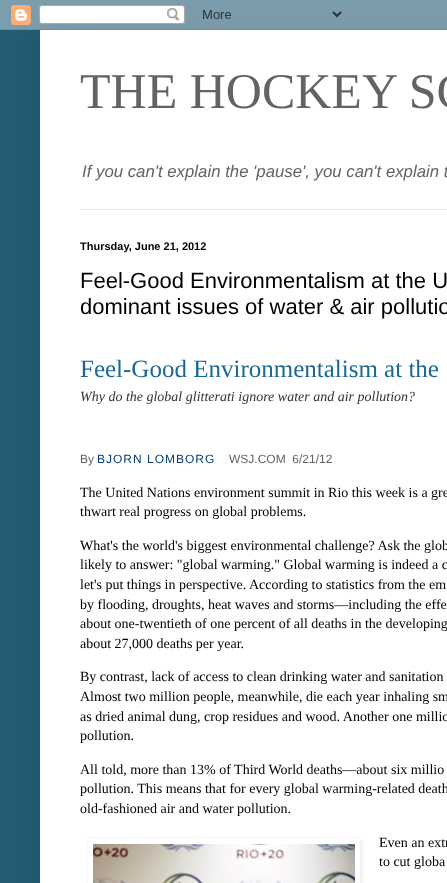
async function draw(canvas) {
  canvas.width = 447
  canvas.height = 883
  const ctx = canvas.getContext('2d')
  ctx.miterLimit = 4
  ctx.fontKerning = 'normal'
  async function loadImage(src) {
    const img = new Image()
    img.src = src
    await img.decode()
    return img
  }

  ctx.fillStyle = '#255d76'
  ctx.fillRect(0, 0, 447, 883)
  ctx.fillStyle = '#00000026'
  ctx.filter = 'blur(20px)'
  ctx.beginPath()
  ctx.rect(40, 30, 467, 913)
  ctx.fill()
  ctx.filter = 'none'
  ctx.drawImage(await loadImage('image0.png'), 0, 0, 447, 30)
  ctx.fillStyle = '#fff'
  ctx.fillRect(40, 30, 407, 853)
  ctx.font = '50px Liberation Serif'
  ctx.fillStyle = '#636363'
  ctx.fillText('THE HOCKEY SC', 80, 108)
  ctx.font = 'italic 16.8px Liberation Sans'
  ctx.fillText('If you can\'t explain the \'pause\', you can\'t explain t', 82, 177)
  ctx.fillStyle = '#e9e9e9'
  ctx.fillRect(80, 209, 367, 1)
  ctx.font = 'bold 11px Liberation Sans'
  ctx.fillStyle = '#000'
  ctx.fillText('Thursday, June 21, 2012', 80, 250)
  ctx.font = '22px Liberation Sans'
  ctx.fillText('Feel-Good Environmentalism at the U', 80, 288)
  ctx.fillText('dominant issues of water & air pollutio', 80, 314)
  ctx.font = '25px Liberation Serif'
  ctx.fillStyle = '#1a6893'
  ctx.fillText('Feel-Good Environmentalism at the', 80, 377)
  ctx.font = 'italic 14px Liberation Serif'
  ctx.fillStyle = '#333'
  ctx.fillText('Why do the global glitterati ignore water and air pollution?', 80, 401)
  ctx.font = '12px Liberation Sans'
  ctx.fillStyle = '#636363'
  ctx.fillText('By', 80, 463)
  ctx.letterSpacing = '1px'
  ctx.fillStyle = '#093d72'
  ctx.fillText('BJORN LOMBORG', 97, 463)
  ctx.letterSpacing = '0px'
  ctx.fillStyle = '#636363'
  ctx.fillText('WSJ.COM  6/21/12', 229, 463)
  ctx.font = '14px Liberation Serif'
  ctx.fillStyle = '#000'
  ctx.fillText('The United Nations environment summit in Rio this week is a gre', 80, 497)
  ctx.fillText('thwart real progress on global problems.', 80, 516)
  ctx.fillText('What\'s the world\'s biggest environmental challenge? Ask the glob', 80, 550)
  ctx.fillText('likely to answer: "global warming." Global warming is indeed a c', 80, 569)
  ctx.fillText('let\'s put things in perspective. According to statistics from the em', 80, 589)
  ctx.fillText('by flooding, droughts, heat waves and storms—including the effe', 80, 609)
  ctx.fillText('about one-twentieth of one percent of all deaths in the developing', 80, 628)
  ctx.fillText('about 27,000 deaths per year.', 80, 648)
  ctx.fillText('By contrast, lack of access to clean drinking water and sanitation', 80, 681)
  ctx.fillText('Almost two million people, meanwhile, die each year inhaling sm', 80, 701)
  ctx.fillText('as dried animal dung, crop residues and wood. Another one millio', 80, 721)
  ctx.fillText('pollution.', 80, 740)
  ctx.fillText('All told, more than 13% of Third World deaths—about six millio', 80, 774)
  ctx.fillText('pollution. This means that for every global warming-related death', 80, 793)
  ctx.fillText('old-fashioned air and water pollution.', 80, 813)
  ctx.save()
  ctx.beginPath()
  ctx.moveTo(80, 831)
  ctx.lineTo(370, 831)
  ctx.lineTo(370, 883)
  ctx.lineTo(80, 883)
  ctx.closePath()
  ctx.moveTo(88, 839)
  ctx.lineTo(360, 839)
  ctx.lineTo(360, 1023)
  ctx.lineTo(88, 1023)
  ctx.closePath()
  ctx.clip('evenodd')
  ctx.fillStyle = '#0000001a'
  ctx.filter = 'blur(2.5px)'
  ctx.beginPath()
  ctx.rect(89, 840, 272, 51)
  ctx.fill()
  ctx.filter = 'none'
  ctx.restore()
  ctx.drawImage(await loadImage('image1.png'), 93, 844, 262, 39)
  ctx.fillText('Even an extr', 379, 847)
  ctx.fillText('to cut globa', 379, 866)
}

draw(document.querySelector('canvas'))
